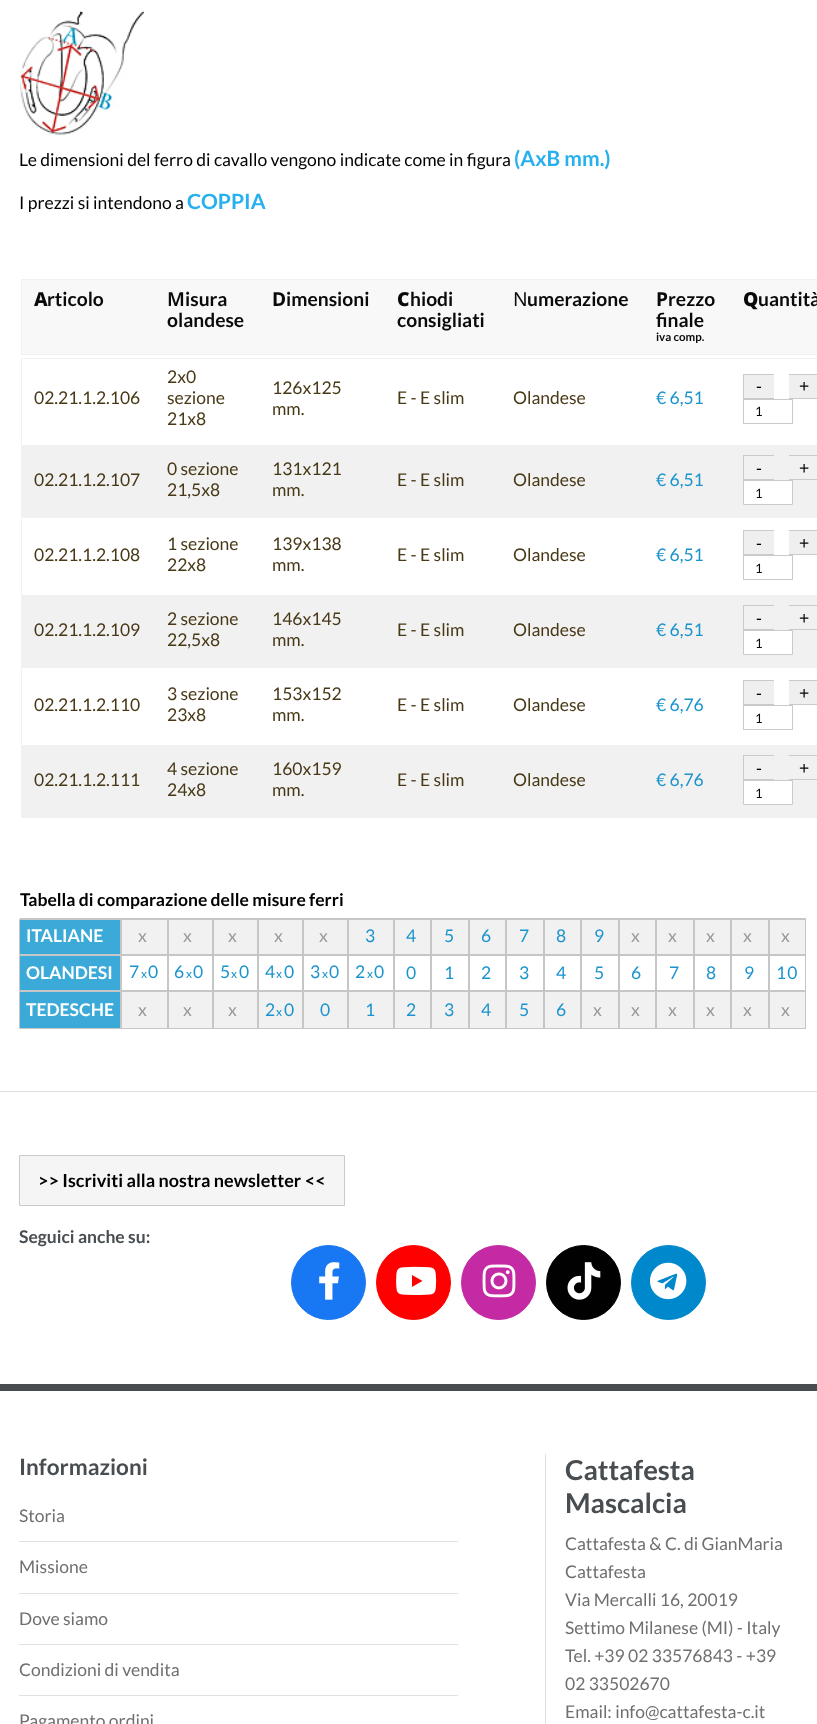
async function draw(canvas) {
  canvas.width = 817
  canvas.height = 1724
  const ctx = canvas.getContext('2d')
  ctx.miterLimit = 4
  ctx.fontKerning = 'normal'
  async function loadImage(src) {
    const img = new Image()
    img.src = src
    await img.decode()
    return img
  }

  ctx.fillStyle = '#fff'
  ctx.fillRect(0, 0, 817, 1724)
  ctx.drawImage(await loadImage('image0.png'), 19, 10, 125, 125)
  ctx.font = '17.5px Lato'
  ctx.fillStyle = '#000'
  ctx.fillText('Le dimensioni del ferro di cavallo vengono indicate come in figura', 19, 166)
  ctx.font = 'bold 21px Lato'
  ctx.fillStyle = '#26b0ee'
  ctx.fillText('(AxB mm.)', 514, 166)
  ctx.font = '17.5px Lato'
  ctx.fillStyle = '#000'
  ctx.fillText('I prezzi si intendono a', 19, 209)
  ctx.font = 'bold 21px Lato'
  ctx.fillStyle = '#26b0ee'
  ctx.fillText('COPPIA', 187, 209)
  ctx.fillStyle = '#f8f8f8'
  ctx.beginPath()
  ctx.rect(21.5, 279.5, 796, 75)
  ctx.fill()
  ctx.strokeStyle = '#f1f1f1'
  ctx.stroke()
  ctx.font = '800 19.25px Noto Sans'
  ctx.fillStyle = '#0a0a0a'
  ctx.fillText('A', 34, 306)
  ctx.font = 'bold 19.25px Lato'
  ctx.fillText('rticolo', 47, 306)
  ctx.font = '600 19.25px Noto Sans'
  ctx.fillText('M', 167, 306)
  ctx.font = 'bold 19.25px Lato'
  ctx.fillText('isura', 185, 306)
  ctx.fillText('olandese', 167, 327)
  ctx.font = 'bold 19.25px Noto Sans'
  ctx.fillText('D', 272, 306)
  ctx.font = 'bold 19.25px Lato'
  ctx.fillText('imensioni', 286, 306)
  ctx.font = '900 19.25px Noto Sans'
  ctx.fillText('C', 397, 306)
  ctx.font = 'bold 19.25px Lato'
  ctx.fillText('hiodi', 410, 306)
  ctx.fillText('consigliati', 397, 327)
  ctx.font = '19.25px Noto Sans'
  ctx.fillText('N', 513, 306)
  ctx.font = 'bold 19.25px Lato'
  ctx.fillText('umerazione', 527, 306)
  ctx.font = 'bold 19.25px Noto Sans'
  ctx.fillText('P', 656, 306)
  ctx.font = 'bold 19.25px Lato'
  ctx.fillText('rezzo', 668, 306)
  ctx.fillText('finale', 656, 327)
  ctx.font = 'bold 11.5px Lato'
  ctx.fillText('iva comp.', 656, 341)
  ctx.font = '900 19.25px Noto Sans'
  ctx.fillText('Q', 743, 306)
  ctx.font = 'bold 19.25px Lato'
  ctx.fillText('uantità', 758, 306)
  ctx.strokeRect(21.5, 358.5, 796, 459)
  ctx.font = '17.5px Lato'
  ctx.fillStyle = '#473816'
  ctx.fillText('02.21.1.2.106', 34, 404)
  ctx.fillText('2x0', 167, 383)
  ctx.fillText('sezione', 167, 404)
  ctx.fillText('21x8', 167, 425)
  ctx.fillText('126x125', 272, 394)
  ctx.fillText('mm.', 272, 415)
  ctx.fillText('E - E slim', 397, 404)
  ctx.fillText('Olandese', 513, 404)
  ctx.fillStyle = '#1b94cd'
  ctx.fillText('€ 6,51', 656, 404)
  ctx.fillStyle = '#efefef'
  ctx.fillRect(744, 375, 30, 23)
  ctx.fillStyle = '#cacaca'
  ctx.fillRect(743, 374, 31, 1)
  ctx.fillRect(743, 398, 31, 1)
  ctx.fillRect(743, 374, 1, 25)
  ctx.font = '17.5px Liberation Sans'
  ctx.fillStyle = '#000'
  ctx.fillText('-', 756, 392)
  ctx.fillStyle = '#efefef'
  ctx.fillRect(789, 375, 28, 23)
  ctx.fillStyle = '#cacaca'
  ctx.fillRect(789, 374, 28, 1)
  ctx.fillRect(789, 398, 28, 1)
  ctx.fillStyle = '#000'
  ctx.fillText('+', 799, 392)
  ctx.strokeStyle = '#cacaca'
  ctx.strokeRect(743.5, 399.5, 49, 24)
  ctx.font = '13px Lato'
  ctx.fillStyle = '#0a0a0a'
  ctx.fillText('1', 755, 416)
  ctx.fillStyle = '#f1f1f1'
  ctx.fillRect(22, 445, 795, 73)
  ctx.font = '17.5px Lato'
  ctx.fillStyle = '#473816'
  ctx.fillText('02.21.1.2.107', 34, 486)
  ctx.fillText('0 sezione', 167, 475)
  ctx.fillText('21,5x8', 167, 496)
  ctx.fillText('131x121', 272, 475)
  ctx.fillText('mm.', 272, 496)
  ctx.fillText('E - E slim', 397, 486)
  ctx.fillText('Olandese', 513, 486)
  ctx.fillStyle = '#1b94cd'
  ctx.fillText('€ 6,51', 656, 486)
  ctx.fillStyle = '#cacaca'
  ctx.fillRect(743, 455, 31, 1)
  ctx.fillRect(743, 479, 31, 1)
  ctx.fillRect(743, 455, 1, 25)
  ctx.font = '17.5px Liberation Sans'
  ctx.fillStyle = '#000'
  ctx.fillText('-', 756, 474)
  ctx.fillStyle = '#cacaca'
  ctx.fillRect(789, 455, 28, 1)
  ctx.fillRect(789, 479, 28, 1)
  ctx.fillStyle = '#000'
  ctx.fillText('+', 799, 474)
  ctx.fillStyle = '#fff'
  ctx.beginPath()
  ctx.rect(743.5, 480.5, 49, 24)
  ctx.fill()
  ctx.stroke()
  ctx.font = '13px Lato'
  ctx.fillStyle = '#0a0a0a'
  ctx.fillText('1', 755, 498)
  ctx.font = '17.5px Lato'
  ctx.fillStyle = '#473816'
  ctx.fillText('02.21.1.2.108', 34, 561)
  ctx.fillText('1 sezione', 167, 550)
  ctx.fillText('22x8', 167, 571)
  ctx.fillText('139x138', 272, 550)
  ctx.fillText('mm.', 272, 571)
  ctx.fillText('E - E slim', 397, 561)
  ctx.fillText('Olandese', 513, 561)
  ctx.fillStyle = '#1b94cd'
  ctx.fillText('€ 6,51', 656, 561)
  ctx.fillStyle = '#efefef'
  ctx.fillRect(744, 531, 30, 23)
  ctx.fillStyle = '#cacaca'
  ctx.fillRect(743, 530, 31, 1)
  ctx.fillRect(743, 554, 31, 1)
  ctx.fillRect(743, 530, 1, 25)
  ctx.font = '17.5px Liberation Sans'
  ctx.fillStyle = '#000'
  ctx.fillText('-', 756, 549)
  ctx.fillStyle = '#efefef'
  ctx.fillRect(789, 531, 28, 23)
  ctx.fillStyle = '#cacaca'
  ctx.fillRect(789, 530, 28, 1)
  ctx.fillRect(789, 554, 28, 1)
  ctx.fillStyle = '#000'
  ctx.fillText('+', 799, 549)
  ctx.strokeRect(743.5, 555.5, 49, 24)
  ctx.font = '13px Lato'
  ctx.fillStyle = '#0a0a0a'
  ctx.fillText('1', 755, 573)
  ctx.fillStyle = '#f1f1f1'
  ctx.fillRect(22, 595, 795, 73)
  ctx.font = '17.5px Lato'
  ctx.fillStyle = '#473816'
  ctx.fillText('02.21.1.2.109', 34, 636)
  ctx.fillText('2 sezione', 167, 625)
  ctx.fillText('22,5x8', 167, 646)
  ctx.fillText('146x145', 272, 625)
  ctx.fillText('mm.', 272, 646)
  ctx.fillText('E - E slim', 397, 636)
  ctx.fillText('Olandese', 513, 636)
  ctx.fillStyle = '#1b94cd'
  ctx.fillText('€ 6,51', 656, 636)
  ctx.fillStyle = '#cacaca'
  ctx.fillRect(743, 605, 31, 1)
  ctx.fillRect(743, 629, 31, 1)
  ctx.fillRect(743, 605, 1, 25)
  ctx.font = '17.5px Liberation Sans'
  ctx.fillStyle = '#000'
  ctx.fillText('-', 756, 624)
  ctx.fillStyle = '#cacaca'
  ctx.fillRect(789, 605, 28, 1)
  ctx.fillRect(789, 629, 28, 1)
  ctx.fillStyle = '#000'
  ctx.fillText('+', 799, 624)
  ctx.fillStyle = '#fff'
  ctx.beginPath()
  ctx.rect(743.5, 630.5, 49, 24)
  ctx.fill()
  ctx.stroke()
  ctx.font = '13px Lato'
  ctx.fillStyle = '#0a0a0a'
  ctx.fillText('1', 755, 648)
  ctx.font = '17.5px Lato'
  ctx.fillStyle = '#473816'
  ctx.fillText('02.21.1.2.110', 34, 711)
  ctx.fillText('3 sezione', 167, 700)
  ctx.fillText('23x8', 167, 721)
  ctx.fillText('153x152', 272, 700)
  ctx.fillText('mm.', 272, 721)
  ctx.fillText('E - E slim', 397, 711)
  ctx.fillText('Olandese', 513, 711)
  ctx.fillStyle = '#1b94cd'
  ctx.fillText('€ 6,76', 656, 711)
  ctx.fillStyle = '#efefef'
  ctx.fillRect(744, 681, 30, 23)
  ctx.fillStyle = '#cacaca'
  ctx.fillRect(743, 680, 31, 1)
  ctx.fillRect(743, 704, 31, 1)
  ctx.fillRect(743, 680, 1, 25)
  ctx.font = '17.5px Liberation Sans'
  ctx.fillStyle = '#000'
  ctx.fillText('-', 756, 699)
  ctx.fillStyle = '#efefef'
  ctx.fillRect(789, 681, 28, 23)
  ctx.fillStyle = '#cacaca'
  ctx.fillRect(789, 680, 28, 1)
  ctx.fillRect(789, 704, 28, 1)
  ctx.fillStyle = '#000'
  ctx.fillText('+', 799, 699)
  ctx.strokeRect(743.5, 705.5, 49, 24)
  ctx.font = '13px Lato'
  ctx.fillStyle = '#0a0a0a'
  ctx.fillText('1', 755, 723)
  ctx.fillStyle = '#f1f1f1'
  ctx.fillRect(22, 745, 795, 72)
  ctx.font = '17.5px Lato'
  ctx.fillStyle = '#473816'
  ctx.fillText('02.21.1.2.111', 34, 786)
  ctx.fillText('4 sezione', 167, 775)
  ctx.fillText('24x8', 167, 796)
  ctx.fillText('160x159', 272, 775)
  ctx.fillText('mm.', 272, 796)
  ctx.fillText('E - E slim', 397, 786)
  ctx.fillText('Olandese', 513, 786)
  ctx.fillStyle = '#1b94cd'
  ctx.fillText('€ 6,76', 656, 786)
  ctx.fillStyle = '#cacaca'
  ctx.fillRect(743, 755, 31, 1)
  ctx.fillRect(743, 779, 31, 1)
  ctx.fillRect(743, 755, 1, 25)
  ctx.font = '17.5px Liberation Sans'
  ctx.fillStyle = '#000'
  ctx.fillText('-', 756, 774)
  ctx.fillStyle = '#cacaca'
  ctx.fillRect(789, 755, 28, 1)
  ctx.fillRect(789, 779, 28, 1)
  ctx.fillStyle = '#000'
  ctx.fillText('+', 799, 774)
  ctx.fillStyle = '#fff'
  ctx.beginPath()
  ctx.rect(743.5, 780.5, 49, 24)
  ctx.fill()
  ctx.stroke()
  ctx.font = '13px Lato'
  ctx.fillStyle = '#0a0a0a'
  ctx.fillText('1', 755, 798)
  ctx.fillStyle = '#c6c6c6'
  ctx.fillRect(19, 918, 787, 1)
  ctx.fillStyle = '#fff'
  ctx.fillRect(19, 918, 1, 1)
  ctx.font = 'bold 17.5px Lato'
  ctx.fillStyle = '#000'
  ctx.fillText('Tabella di comparazione delle misure ferri', 20, 906)
  ctx.fillStyle = '#f1f1f1'
  ctx.fillRect(122, 920, 683, 34)
  ctx.fillStyle = '#3baad8'
  ctx.beginPath()
  ctx.rect(19.5, 919.5, 101, 35)
  ctx.fill()
  ctx.strokeStyle = '#c6c6c6'
  ctx.stroke()
  ctx.fillStyle = '#fff'
  ctx.fillText('ITALIANE', 26, 942)
  ctx.strokeRect(121.5, 919.5, 46, 35)
  ctx.letterSpacing = '4px'
  ctx.font = '17.5px Lato'
  ctx.fillStyle = '#999'
  ctx.fillText('x', 138, 942)
  ctx.strokeRect(168.5, 919.5, 44, 35)
  ctx.fillText('x', 183, 942)
  ctx.strokeRect(213.5, 919.5, 44, 35)
  ctx.fillText('x', 228, 942)
  ctx.strokeRect(258.5, 919.5, 44, 35)
  ctx.fillText('x', 274, 942)
  ctx.strokeRect(303.5, 919.5, 44, 35)
  ctx.fillText('x', 319, 942)
  ctx.strokeRect(348.5, 919.5, 45, 35)
  ctx.letterSpacing = '1px'
  ctx.fillStyle = '#1b94cd'
  ctx.fillText('3', 365, 942)
  ctx.strokeRect(394.5, 919.5, 36, 35)
  ctx.fillText('4', 406, 942)
  ctx.strokeRect(431.5, 919.5, 37, 35)
  ctx.fillText('5', 444, 942)
  ctx.strokeRect(469.5, 919.5, 36, 35)
  ctx.fillText('6', 481, 942)
  ctx.strokeRect(506.5, 919.5, 37, 35)
  ctx.fillText('7', 519, 942)
  ctx.strokeRect(544.5, 919.5, 36, 35)
  ctx.fillText('8', 556, 942)
  ctx.strokeRect(581.5, 919.5, 37, 35)
  ctx.fillText('9', 594, 942)
  ctx.strokeRect(619.5, 919.5, 36, 35)
  ctx.letterSpacing = '4px'
  ctx.fillStyle = '#999'
  ctx.fillText('x', 631, 942)
  ctx.strokeRect(656.5, 919.5, 37, 35)
  ctx.fillText('x', 668, 942)
  ctx.strokeRect(694.5, 919.5, 36, 35)
  ctx.fillText('x', 706, 942)
  ctx.strokeRect(731.5, 919.5, 37, 35)
  ctx.fillText('x', 743, 942)
  ctx.strokeRect(769.5, 919.5, 36, 35)
  ctx.fillText('x', 781, 942)
  ctx.fillStyle = '#3baad8'
  ctx.beginPath()
  ctx.rect(19.5, 955.5, 101, 35)
  ctx.fill()
  ctx.stroke()
  ctx.letterSpacing = '0px'
  ctx.font = 'bold 17.5px Lato'
  ctx.fillStyle = '#fff'
  ctx.fillText('OLANDESI', 26, 979)
  ctx.strokeRect(121.5, 955.5, 46, 35)
  ctx.letterSpacing = '1px'
  ctx.font = '17.5px Lato'
  ctx.fillStyle = '#1b94cd'
  ctx.fillText('7', 129, 978)
  ctx.font = '12px Lato'
  ctx.fillText('x', 141, 978)
  ctx.font = '17.5px Lato'
  ctx.fillText('0', 148, 978)
  ctx.strokeRect(168.5, 955.5, 44, 35)
  ctx.fillText('6', 174, 978)
  ctx.font = '12px Lato'
  ctx.fillText('x', 186, 978)
  ctx.font = '17.5px Lato'
  ctx.fillText('0', 193, 978)
  ctx.strokeRect(213.5, 955.5, 44, 35)
  ctx.fillText('5', 220, 978)
  ctx.font = '12px Lato'
  ctx.fillText('x', 231, 978)
  ctx.font = '17.5px Lato'
  ctx.fillText('0', 239, 978)
  ctx.strokeRect(258.5, 955.5, 44, 35)
  ctx.fillText('4', 265, 978)
  ctx.font = '12px Lato'
  ctx.fillText('x', 276, 978)
  ctx.font = '17.5px Lato'
  ctx.fillText('0', 284, 978)
  ctx.strokeRect(303.5, 955.5, 44, 35)
  ctx.fillText('3', 310, 978)
  ctx.font = '12px Lato'
  ctx.fillText('x', 322, 978)
  ctx.font = '17.5px Lato'
  ctx.fillText('0', 329, 978)
  ctx.strokeRect(348.5, 955.5, 45, 35)
  ctx.fillText('2', 355, 978)
  ctx.font = '12px Lato'
  ctx.fillText('x', 367, 978)
  ctx.font = '17.5px Lato'
  ctx.fillText('0', 374, 978)
  ctx.strokeRect(394.5, 955.5, 36, 35)
  ctx.fillText('0', 406, 979)
  ctx.strokeRect(431.5, 955.5, 37, 35)
  ctx.fillText('1', 444, 979)
  ctx.strokeRect(469.5, 955.5, 36, 35)
  ctx.fillText('2', 481, 979)
  ctx.strokeRect(506.5, 955.5, 37, 35)
  ctx.fillText('3', 519, 979)
  ctx.strokeRect(544.5, 955.5, 36, 35)
  ctx.fillText('4', 556, 979)
  ctx.strokeRect(581.5, 955.5, 37, 35)
  ctx.fillText('5', 594, 979)
  ctx.strokeRect(619.5, 955.5, 36, 35)
  ctx.fillText('6', 631, 979)
  ctx.strokeRect(656.5, 955.5, 37, 35)
  ctx.fillText('7', 669, 979)
  ctx.strokeRect(694.5, 955.5, 36, 35)
  ctx.fillText('8', 706, 979)
  ctx.strokeRect(731.5, 955.5, 37, 35)
  ctx.fillText('9', 744, 979)
  ctx.strokeRect(769.5, 955.5, 36, 35)
  ctx.fillText('10', 776, 979)
  ctx.fillStyle = '#f1f1f1'
  ctx.fillRect(122, 992, 683, 36)
  ctx.fillStyle = '#3baad8'
  ctx.beginPath()
  ctx.rect(19.5, 991.5, 101, 37)
  ctx.fill()
  ctx.stroke()
  ctx.letterSpacing = '0px'
  ctx.font = 'bold 17.5px Lato'
  ctx.fillStyle = '#fff'
  ctx.fillText('TEDESCHE', 26, 1016)
  ctx.strokeRect(121.5, 991.5, 46, 37)
  ctx.letterSpacing = '4px'
  ctx.font = '17.5px Lato'
  ctx.fillStyle = '#999'
  ctx.fillText('x', 138, 1016)
  ctx.strokeRect(168.5, 991.5, 44, 37)
  ctx.fillText('x', 183, 1016)
  ctx.strokeRect(213.5, 991.5, 44, 37)
  ctx.fillText('x', 228, 1016)
  ctx.strokeRect(258.5, 991.5, 44, 37)
  ctx.letterSpacing = '1px'
  ctx.fillStyle = '#1b94cd'
  ctx.fillText('2', 265, 1016)
  ctx.font = '12px Lato'
  ctx.fillText('x', 276, 1016)
  ctx.font = '17.5px Lato'
  ctx.fillText('0', 284, 1016)
  ctx.strokeRect(303.5, 991.5, 44, 37)
  ctx.fillText('0', 320, 1016)
  ctx.strokeRect(348.5, 991.5, 45, 37)
  ctx.fillText('1', 365, 1016)
  ctx.strokeRect(394.5, 991.5, 36, 37)
  ctx.fillText('2', 406, 1016)
  ctx.strokeRect(431.5, 991.5, 37, 37)
  ctx.fillText('3', 444, 1016)
  ctx.strokeRect(469.5, 991.5, 36, 37)
  ctx.fillText('4', 481, 1016)
  ctx.strokeRect(506.5, 991.5, 37, 37)
  ctx.fillText('5', 519, 1016)
  ctx.strokeRect(544.5, 991.5, 36, 37)
  ctx.fillText('6', 556, 1016)
  ctx.strokeRect(581.5, 991.5, 37, 37)
  ctx.letterSpacing = '4px'
  ctx.fillStyle = '#999'
  ctx.fillText('x', 593, 1016)
  ctx.strokeRect(619.5, 991.5, 36, 37)
  ctx.fillText('x', 631, 1016)
  ctx.strokeRect(656.5, 991.5, 37, 37)
  ctx.fillText('x', 668, 1016)
  ctx.strokeRect(694.5, 991.5, 36, 37)
  ctx.fillText('x', 706, 1016)
  ctx.strokeRect(731.5, 991.5, 37, 37)
  ctx.fillText('x', 743, 1016)
  ctx.strokeRect(769.5, 991.5, 36, 37)
  ctx.fillText('x', 781, 1016)
  ctx.fillStyle = '#dcdddd'
  ctx.fillRect(0, 1091, 817, 1)
  ctx.fillStyle = '#f5f5f5'
  ctx.beginPath()
  ctx.rect(19.5, 1155.5, 325, 50)
  ctx.fill()
  ctx.strokeStyle = '#cacaca'
  ctx.stroke()
  ctx.letterSpacing = '0px'
  ctx.font = 'bold 18px Lato'
  ctx.fillStyle = '#000'
  ctx.fillText('>> Iscriviti alla nostra newsletter <<', 38, 1187)
  ctx.font = 'bold 17.5px Lato'
  ctx.fillStyle = '#474d50'
  ctx.fillText('Seguici anche su:', 19, 1243)
  ctx.fillStyle = '#1877f2'
  ctx.beginPath()
  ctx.arc(328.5, 1282.5, 37, 0, 2 * Math.PI)
  ctx.fill()
  ctx.strokeStyle = '#1877f2'
  ctx.stroke()
  ctx.drawImage(await loadImage('image1.png'), 319, 1262, 21, 38)
  ctx.fillStyle = '#f00'
  ctx.beginPath()
  ctx.arc(413.5, 1282.5, 37, 0, 2 * Math.PI)
  ctx.fill()
  ctx.strokeStyle = '#f00'
  ctx.stroke()
  ctx.drawImage(await loadImage('image2.png'), 396, 1266, 41, 29)
  ctx.fillStyle = '#c32aa3'
  ctx.beginPath()
  ctx.arc(498.5, 1282.5, 37, 0, 2 * Math.PI)
  ctx.fill()
  ctx.strokeStyle = '#c32aa3'
  ctx.stroke()
  ctx.drawImage(await loadImage('image3.png'), 482, 1264, 34, 34)
  ctx.fillStyle = '#010101'
  ctx.beginPath()
  ctx.arc(583.5, 1282.5, 37, 0, 2 * Math.PI)
  ctx.fill()
  ctx.strokeStyle = '#010101'
  ctx.stroke()
  ctx.drawImage(await loadImage('image4.png'), 567, 1262, 34, 38)
  ctx.fillStyle = '#08c'
  ctx.beginPath()
  ctx.arc(668.5, 1282.5, 37, 0, 2 * Math.PI)
  ctx.fill()
  ctx.strokeStyle = '#08c'
  ctx.stroke()
  ctx.drawImage(await loadImage('image5.png'), 650, 1262, 37, 38)
  ctx.fillStyle = '#474d50'
  ctx.fillRect(0, 1384, 817, 7)
  ctx.font = 'bold 22.5px Lato'
  ctx.fillText('Informazioni', 19, 1475)
  ctx.fillStyle = '#e1e1e1'
  ctx.fillRect(19, 1541, 439, 1)
  ctx.font = '17.5px Lato'
  ctx.fillStyle = '#6f6f6f'
  ctx.fillText('Storia', 19, 1522)
  ctx.fillStyle = '#e1e1e1'
  ctx.fillRect(19, 1593, 439, 1)
  ctx.fillStyle = '#6f6f6f'
  ctx.fillText('Missione', 19, 1573)
  ctx.fillStyle = '#e1e1e1'
  ctx.fillRect(19, 1644, 439, 1)
  ctx.fillStyle = '#6f6f6f'
  ctx.fillText('Dove siamo', 19, 1625)
  ctx.fillStyle = '#e1e1e1'
  ctx.fillRect(19, 1695, 439, 1)
  ctx.fillStyle = '#6f6f6f'
  ctx.fillText('Condizioni di vendita', 19, 1676)
  ctx.fillText('Pagamento ordini', 19, 1727)
  ctx.fillStyle = '#e1e1e1'
  ctx.fillRect(545, 1454, 1, 270)
  ctx.font = 'bold 27.5px Lato'
  ctx.fillStyle = '#474d50'
  ctx.fillText('Cattafesta', 565, 1480)
  ctx.fillText('Mascalcia', 565, 1513)
  ctx.font = '17.5px Lato'
  ctx.fillStyle = '#6f6f6f'
  ctx.fillText('Cattafesta & C. di GianMaria', 565, 1550)
  ctx.fillText('Cattafesta', 565, 1578)
  ctx.fillText('Via Mercalli 16, 20019', 565, 1606)
  ctx.fillText('Settimo Milanese (MI) - Italy', 565, 1634)
  ctx.fillText('Tel. +39 02 33576843 - +39', 565, 1662)
  ctx.fillText('02 33502670', 565, 1690)
  ctx.fillText('Email: info@cattafesta-c.it', 565, 1718)
}

draw(document.querySelector('canvas'))
